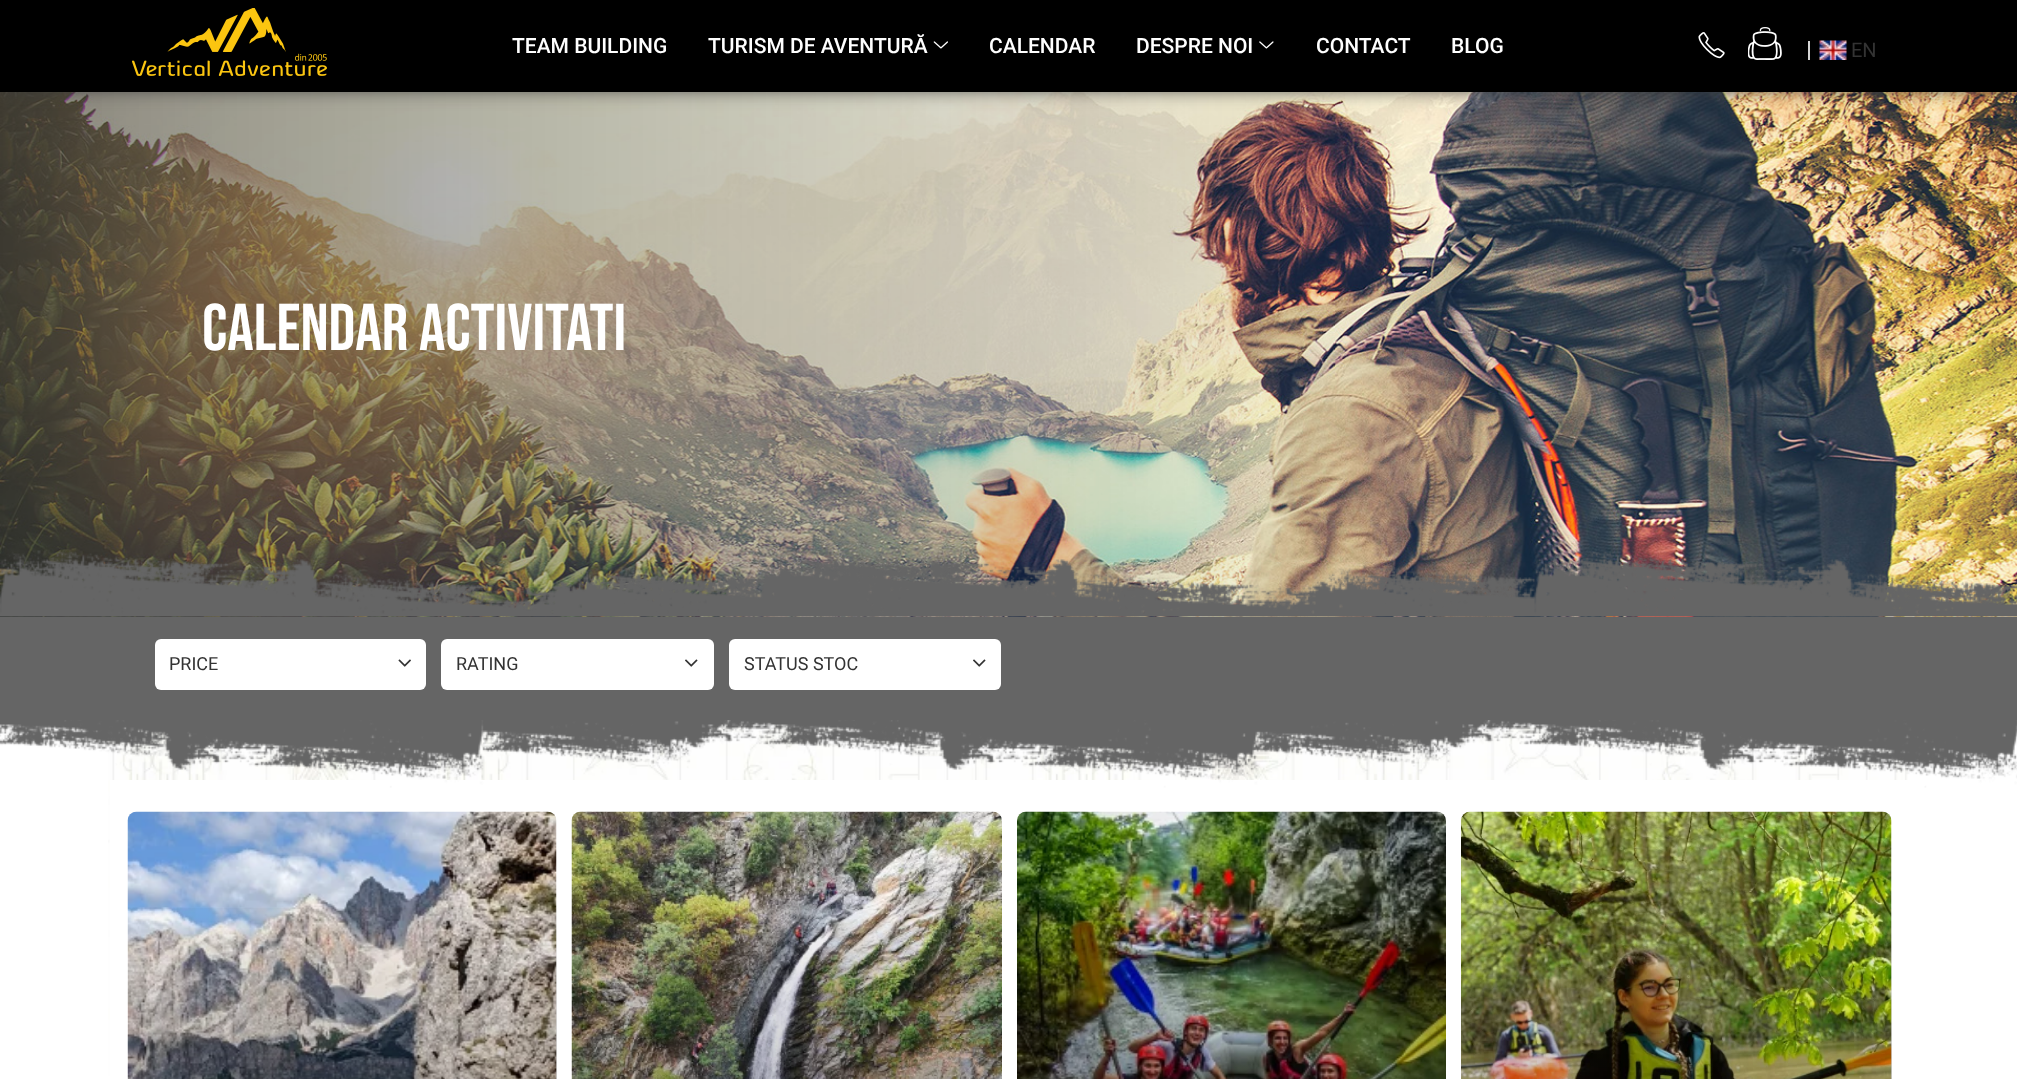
async function draw(canvas) {
  canvas.width = 2017
  canvas.height = 1079
  const ctx = canvas.getContext('2d')
  ctx.miterLimit = 4
  ctx.fontKerning = 'normal'
  async function loadImage(src) {
    const img = new Image()
    img.src = src
    await img.decode()
    return img
  }
  let gradient

  ctx.fillStyle = '#fff'
  ctx.fillRect(0, 0, 2017, 1079)
  ctx.drawImage(await loadImage('image0.png'), 108, 720, 1800, 356)
  ctx.drawImage(await loadImage('image7.png'), 0, 92, 2017, 525)
  ctx.fillStyle = '#3c3c3c'
  ctx.filter = 'blur(9px)'
  ctx.beginPath()
  ctx.rect(3, 3, 2012, 86)
  ctx.fill()
  ctx.filter = 'none'
  ctx.fillStyle = '#000'
  ctx.fillRect(0, 0, 2017, 92)
  ctx.drawImage(await loadImage('image1.png'), 132, 8, 195, 68)
  ctx.font = '500 21px Roboto'
  ctx.fillStyle = '#fff'
  ctx.fillText('TEAM BUILDING', 512, 53)
  ctx.fillText('TURISM DE AVENTURĂ', 708, 53)
  ctx.drawImage(await loadImage('image2.png'), 933, 41, 15, 8)
  ctx.fillText('CALENDAR', 989, 53)
  ctx.fillText('DESPRE NOI', 1136, 53)
  ctx.drawImage(await loadImage('image3.png'), 1259, 41, 15, 8)
  ctx.fillText('CONTACT', 1316, 53)
  ctx.fillText('BLOG', 1451, 53)
  ctx.drawImage(await loadImage('image4.png'), 1698, 32, 27, 27)
  ctx.drawImage(await loadImage('image5.png'), 1748, 27, 34, 33)
  ctx.drawImage(await loadImage('image6.png'), 1819, 40, 28, 20)
  ctx.font = '20px Roboto'
  ctx.fillStyle = '#333'
  ctx.fillText('EN', 1851, 57)
  ctx.fillStyle = '#d5d5d5'
  ctx.fillRect(1808, 41, 2, 19)
  ctx.font = '66px Bebas Neue'
  ctx.fillStyle = '#fff'
  ctx.fillText('Calendar activitati', 202, 350)
  ctx.drawImage(await loadImage('image8.png'), 0, 550, 2017, 67)
  ctx.fillStyle = '#656565'
  ctx.fillRect(0, 617, 2017, 103)
  ctx.fillStyle = '#fff'
  ctx.beginPath()
  ctx.roundRect(155, 639, 271, 51, 6)
  ctx.fill()
  ctx.font = '18px Roboto'
  ctx.fillStyle = '#333'
  ctx.fillText('PRICE', 169, 670)
  ctx.drawImage(await loadImage('image9.png'), 398, 659, 13, 8)
  ctx.fillStyle = '#fff'
  ctx.beginPath()
  ctx.roundRect(441, 639, 273, 51, 6)
  ctx.fill()
  ctx.fillStyle = '#333'
  ctx.fillText('RATING', 456, 670)
  ctx.drawImage(await loadImage('image10.png'), 685, 659, 13, 8)
  ctx.fillStyle = '#fff'
  ctx.beginPath()
  ctx.roundRect(729, 639, 272, 51, 6)
  ctx.fill()
  ctx.fillStyle = '#333'
  ctx.fillText('STATUS STOC', 744, 670)
  ctx.drawImage(await loadImage('image10.png'), 973, 659, 13, 8)
  ctx.fillStyle = '#fff'
  ctx.fillRect(110, 780, 1798, 296)
  ctx.drawImage(await loadImage('image11.png'), 0, 720, 2017, 68)
  ctx.drawImage(await loadImage('image12.png'), 127, 811, 430, 268)
  gradient = ctx.createLinearGradient(342, 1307, 342, 812)
  gradient.addColorStop(0.15, '#00000059')
  gradient.addColorStop(0.85, '#00000000')
  ctx.fillStyle = gradient
  ctx.fillRect(128, 908, 429, 171)
  ctx.drawImage(await loadImage('image13.png'), 571, 811, 431, 268)
  gradient = ctx.createLinearGradient(787, 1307, 787, 812)
  gradient.addColorStop(0.15, '#00000059')
  gradient.addColorStop(0.85, '#00000000')
  ctx.fillStyle = gradient
  ctx.fillRect(572, 908, 430, 171)
  ctx.drawImage(await loadImage('image14.png'), 1017, 811, 429, 268)
  gradient = ctx.createLinearGradient(1232, 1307, 1232, 812)
  gradient.addColorStop(0.15, '#00000059')
  gradient.addColorStop(0.85, '#00000000')
  ctx.fillStyle = gradient
  ctx.fillRect(1017, 908, 429, 171)
  ctx.drawImage(await loadImage('image15.png'), 1461, 811, 431, 268)
  gradient = ctx.createLinearGradient(1676, 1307, 1676, 812)
  gradient.addColorStop(0.15, '#00000059')
  gradient.addColorStop(0.85, '#00000000')
  ctx.fillStyle = gradient
  ctx.fillRect(1461, 908, 431, 171)
}

draw(document.querySelector('canvas'))
